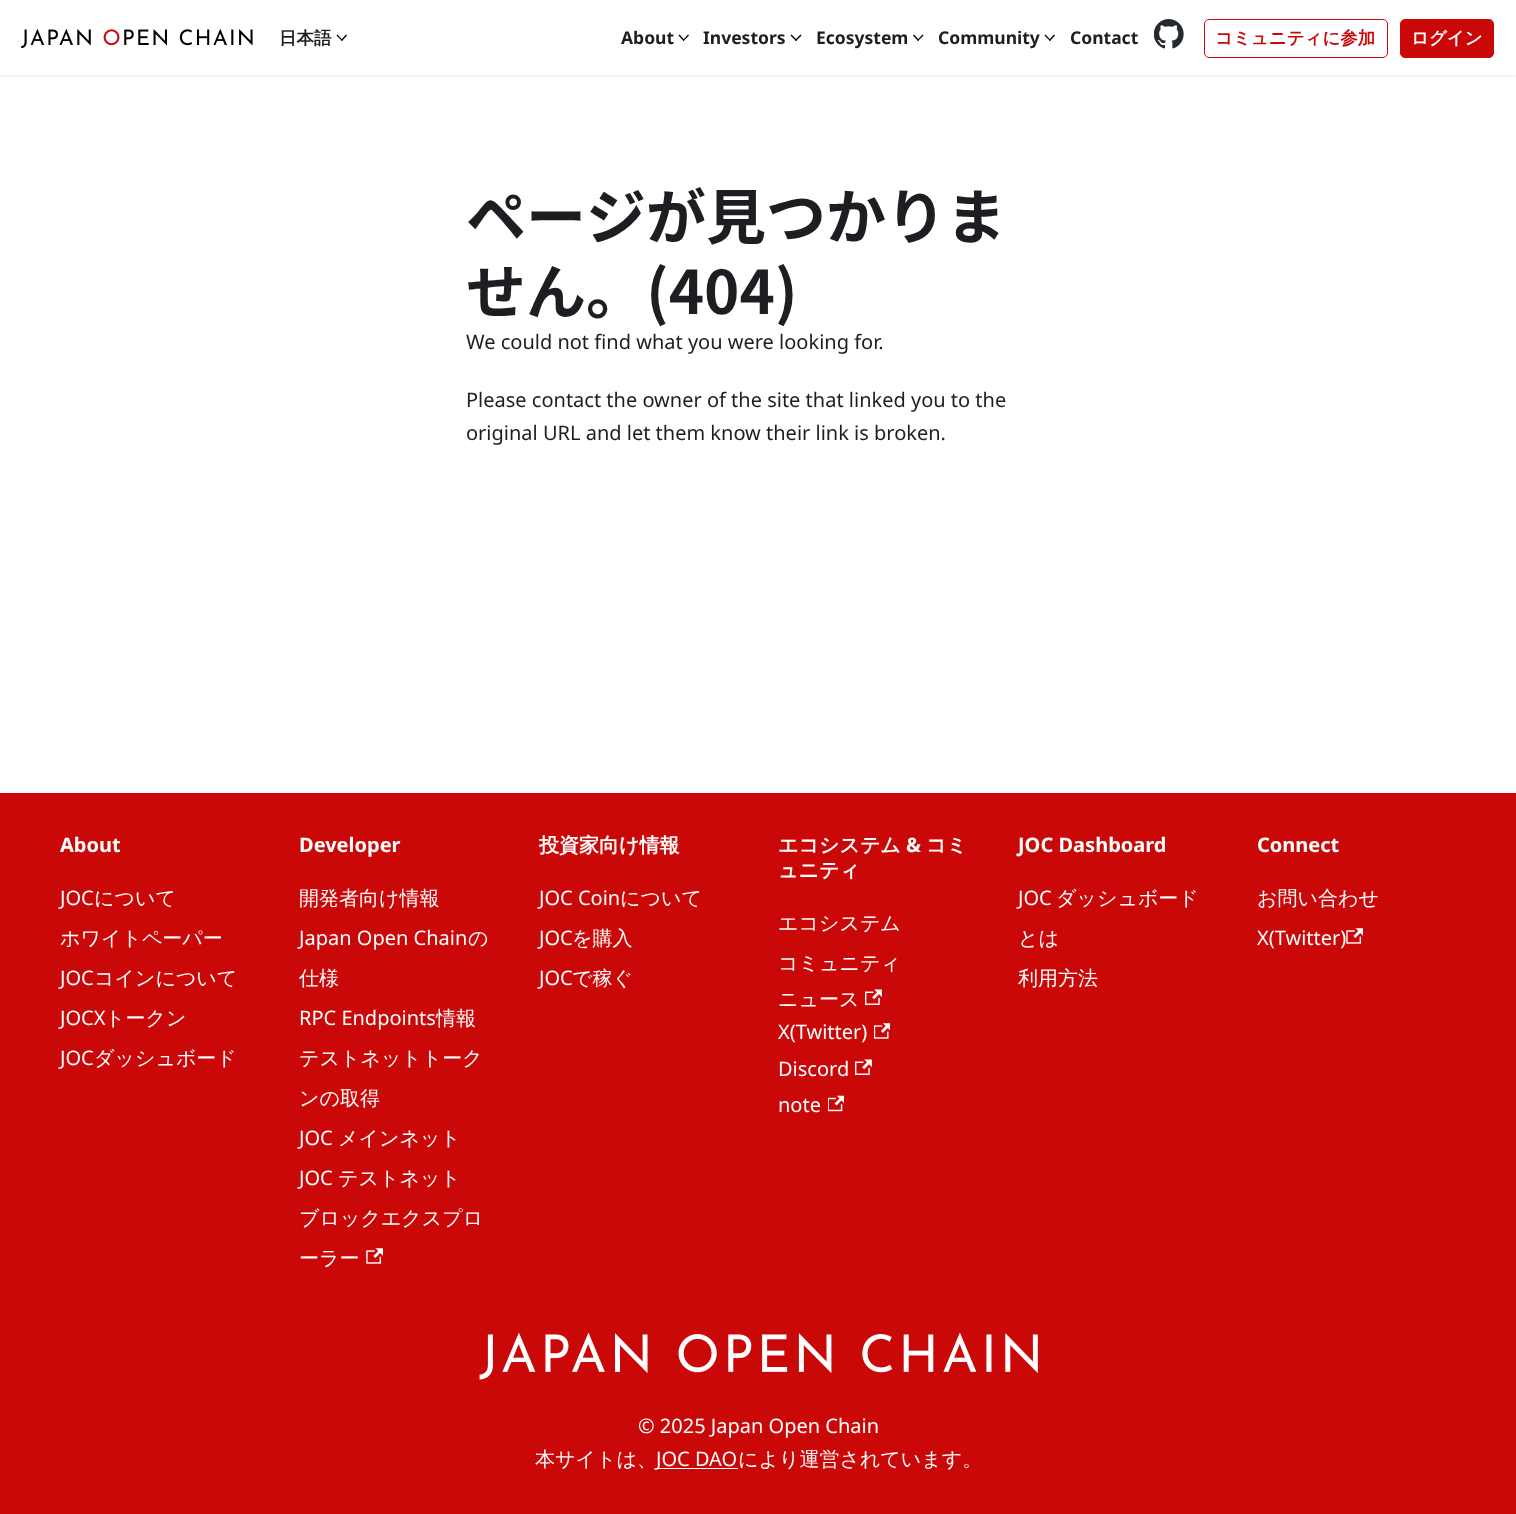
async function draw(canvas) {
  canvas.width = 1516
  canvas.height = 1514
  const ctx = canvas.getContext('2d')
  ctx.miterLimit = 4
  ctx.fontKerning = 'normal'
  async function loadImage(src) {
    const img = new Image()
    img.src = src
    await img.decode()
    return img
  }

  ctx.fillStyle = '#fff'
  ctx.fillRect(0, 0, 1516, 1514)
  ctx.save()
  ctx.beginPath()
  ctx.rect(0, 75, 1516, 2)
  ctx.clip()
  ctx.fillStyle = '#0000001a'
  ctx.filter = 'blur(1px)'
  ctx.beginPath()
  ctx.rect(0, 1, 1516, 75)
  ctx.fill()
  ctx.filter = 'none'
  ctx.restore()
  ctx.drawImage(await loadImage('image0.png'), 21, 28, 232, 21)
  ctx.font = 'bold 17.5px WenQuanYi Zen Hei'
  ctx.fillStyle = '#1c1e21'
  ctx.fillText('日本語', 279, 44)
  ctx.fillStyle = '#000'
  ctx.beginPath()
  ctx.moveTo(346, 34.5)
  ctx.lineTo(347, 35.5)
  ctx.lineTo(342, 41)
  ctx.lineTo(341, 40)
  ctx.closePath()
  ctx.fill()
  ctx.beginPath()
  ctx.moveTo(337.5, 34.5)
  ctx.lineTo(342.5, 40)
  ctx.lineTo(342, 41)
  ctx.lineTo(336.5, 35.5)
  ctx.closePath()
  ctx.fill()
  ctx.font = 'bold 17.5px Noto Sans'
  ctx.fillStyle = '#1c1e21'
  ctx.fillText('About', 621, 44)
  ctx.fillStyle = '#000'
  ctx.beginPath()
  ctx.moveTo(688, 34.5)
  ctx.lineTo(689, 35.5)
  ctx.lineTo(683.5, 41)
  ctx.lineTo(683, 40)
  ctx.closePath()
  ctx.fill()
  ctx.beginPath()
  ctx.moveTo(679.5, 34.5)
  ctx.lineTo(684.5, 40)
  ctx.lineTo(683.5, 41)
  ctx.lineTo(678.5, 35.5)
  ctx.closePath()
  ctx.fill()
  ctx.fillStyle = '#1c1e21'
  ctx.fillText('Investors', 703, 44)
  ctx.fillStyle = '#000'
  ctx.beginPath()
  ctx.moveTo(800.5, 34.5)
  ctx.lineTo(801.5, 35.5)
  ctx.lineTo(796, 41)
  ctx.lineTo(795, 40)
  ctx.closePath()
  ctx.fill()
  ctx.beginPath()
  ctx.moveTo(791.5, 34.5)
  ctx.lineTo(797, 40)
  ctx.lineTo(796, 41)
  ctx.lineTo(790.5, 35.5)
  ctx.closePath()
  ctx.fill()
  ctx.fillStyle = '#1c1e21'
  ctx.fillText('Ecosystem', 816, 44)
  ctx.fillStyle = '#000'
  ctx.beginPath()
  ctx.moveTo(922.5, 34.5)
  ctx.lineTo(923.5, 35.5)
  ctx.lineTo(918, 41)
  ctx.lineTo(917.5, 40)
  ctx.closePath()
  ctx.fill()
  ctx.beginPath()
  ctx.moveTo(914, 34.5)
  ctx.lineTo(919, 40)
  ctx.lineTo(918, 41)
  ctx.lineTo(913, 35.5)
  ctx.closePath()
  ctx.fill()
  ctx.fillStyle = '#1c1e21'
  ctx.fillText('Community', 938, 44)
  ctx.fillStyle = '#000'
  ctx.beginPath()
  ctx.moveTo(1054, 34.5)
  ctx.lineTo(1055, 35.5)
  ctx.lineTo(1050, 41)
  ctx.lineTo(1049, 40)
  ctx.closePath()
  ctx.fill()
  ctx.beginPath()
  ctx.moveTo(1045.5, 34.5)
  ctx.lineTo(1050.5, 40)
  ctx.lineTo(1050, 41)
  ctx.lineTo(1044.5, 35.5)
  ctx.closePath()
  ctx.fill()
  ctx.fillStyle = '#1c1e21'
  ctx.fillText('Contact', 1070, 44)
  ctx.drawImage(await loadImage('image1.png'), 1154, 19, 30, 30)
  ctx.beginPath()
  ctx.roundRect(1204.5, 19.5, 183, 38, 4.5)
  ctx.strokeStyle = '#cb0808'
  ctx.stroke()
  ctx.font = 'bold 17.5px WenQuanYi Zen Hei'
  ctx.fillStyle = '#cb0808'
  ctx.fillText('コミュニティに参加', 1215, 44)
  ctx.beginPath()
  ctx.roundRect(1400.5, 19.5, 93, 38, 4.5)
  ctx.fill()
  ctx.stroke()
  ctx.fillStyle = '#fff'
  ctx.fillText('ログイン', 1411, 44)
  ctx.font = 'bold 60px Noto Sans JP'
  ctx.fillStyle = '#1c1e21'
  ctx.fillText('ページが見つかりま', 466, 239)
  ctx.fillText('せん。(404)', 466, 314)
  ctx.font = '20px Noto Sans'
  ctx.fillText('We could not find what you were looking for.', 466, 349)
  ctx.fillText('Please contact the owner of the site that linked you to the', 466, 407)
  ctx.fillText('original URL and let them know their link is broken.', 466, 440)
  ctx.fillStyle = '#cb0808'
  ctx.fillRect(0, 793, 1516, 721)
  ctx.font = 'bold 20px Noto Sans'
  ctx.fillStyle = '#fff'
  ctx.fillText('About', 60, 852)
  ctx.font = '20px Noto Sans'
  ctx.fillText('JOC', 60, 905)
  ctx.font = '500 20px WenQuanYi Zen Hei'
  ctx.fillText('について', 94, 905)
  ctx.fillText('ホワイトペーパー', 60, 945)
  ctx.font = '20px Noto Sans'
  ctx.fillText('JOC', 60, 985)
  ctx.font = '500 20px WenQuanYi Zen Hei'
  ctx.fillText('コインについて', 94, 985)
  ctx.font = '20px Noto Sans'
  ctx.fillText('JOCX', 60, 1025)
  ctx.font = '500 20px WenQuanYi Zen Hei'
  ctx.fillText('トークン', 105, 1025)
  ctx.font = '20px Noto Sans'
  ctx.fillText('JOC', 60, 1065)
  ctx.font = '500 20px WenQuanYi Zen Hei'
  ctx.fillText('ダッシュボード', 94, 1065)
  ctx.font = 'bold 20px Noto Sans'
  ctx.fillText('Developer', 299, 852)
  ctx.font = '500 20px WenQuanYi Zen Hei'
  ctx.fillText('開発者向け情報', 299, 905)
  ctx.font = '20px Noto Sans'
  ctx.fillText('Japan Open Chain', 299, 945)
  ctx.font = '500 20px WenQuanYi Zen Hei'
  ctx.fillText('の', 468, 945)
  ctx.fillText('仕様', 299, 985)
  ctx.font = '20px Noto Sans'
  ctx.fillText('RPC Endpoints', 299, 1025)
  ctx.font = '500 20px WenQuanYi Zen Hei'
  ctx.fillText('情報', 436, 1025)
  ctx.fillText('テストネットトーク', 299, 1065)
  ctx.fillText('ンの取得', 299, 1105)
  ctx.font = '20px Noto Sans'
  ctx.fillText('JOC', 299, 1145)
  ctx.font = '500 20px WenQuanYi Zen Hei'
  ctx.fillText('メインネット', 338, 1145)
  ctx.font = '20px Noto Sans'
  ctx.fillText('JOC', 299, 1185)
  ctx.font = '500 20px WenQuanYi Zen Hei'
  ctx.fillText('テストネット', 338, 1185)
  ctx.fillText('ブロックエクスプロ', 299, 1225)
  ctx.fillText('ーラー', 299, 1265)
  ctx.drawImage(await loadImage('image2.png'), 366, 1248, 17, 16)
  ctx.font = 'bold 20px WenQuanYi Zen Hei'
  ctx.fillText('投資家向け情報', 539, 852)
  ctx.font = '20px Noto Sans'
  ctx.fillText('JOC Coin', 539, 905)
  ctx.font = '500 20px WenQuanYi Zen Hei'
  ctx.fillText('について', 620, 905)
  ctx.font = '20px Noto Sans'
  ctx.fillText('JOC', 539, 945)
  ctx.font = '500 20px WenQuanYi Zen Hei'
  ctx.fillText('を購入', 572, 945)
  ctx.font = '20px Noto Sans'
  ctx.fillText('JOC', 539, 985)
  ctx.font = '500 20px WenQuanYi Zen Hei'
  ctx.fillText('で稼ぐ', 572, 985)
  ctx.font = 'bold 20px WenQuanYi Zen Hei'
  ctx.fillText('エコシステム', 778, 852)
  ctx.font = 'bold 20px Noto Sans'
  ctx.fillText('&', 906, 852)
  ctx.font = 'bold 20px WenQuanYi Zen Hei'
  ctx.fillText('コミ', 926, 852)
  ctx.fillText('ュニティ', 778, 877)
  ctx.font = '500 20px WenQuanYi Zen Hei'
  ctx.fillText('エコシステム', 778, 930)
  ctx.fillText('コミュニティ', 778, 970)
  ctx.fillText('ニュース', 778, 1006)
  ctx.drawImage(await loadImage('image3.png'), 865, 989, 17, 16)
  ctx.font = '20px Noto Sans'
  ctx.fillText('X(Twitter)', 778, 1039)
  ctx.drawImage(await loadImage('image4.png'), 874, 1023, 16, 16)
  ctx.fillText('Discord', 778, 1076)
  ctx.drawImage(await loadImage('image3.png'), 855, 1059, 17, 16)
  ctx.fillText('note', 778, 1112)
  ctx.drawImage(await loadImage('image5.png'), 828, 1095, 16, 17)
  ctx.font = 'bold 20px Noto Sans'
  ctx.fillText('JOC Dashboard', 1018, 852)
  ctx.font = '20px Noto Sans'
  ctx.fillText('JOC', 1018, 905)
  ctx.font = '500 20px WenQuanYi Zen Hei'
  ctx.fillText('ダッシュボード', 1056, 905)
  ctx.fillText('とは', 1018, 945)
  ctx.fillText('利用方法', 1018, 985)
  ctx.font = 'bold 20px Noto Sans'
  ctx.fillText('Connect', 1257, 852)
  ctx.font = '500 20px WenQuanYi Zen Hei'
  ctx.fillText('お問い合わせ', 1257, 905)
  ctx.font = '20px Noto Sans'
  ctx.fillText('X(Twitter)', 1257, 945)
  ctx.drawImage(await loadImage('image2.png'), 1346, 928, 17, 16)
  ctx.drawImage(await loadImage('image6.png'), 479, 1332, 559, 48)
  ctx.fillText('© 2025 Japan Open Chain', 638, 1433)
  ctx.font = '500 20px WenQuanYi Zen Hei'
  ctx.fillText('本サイトは、', 535, 1466)
  ctx.fillRect(656, 1468, 82, 1)
  ctx.font = '20px Noto Sans'
  ctx.fillText('JOC DAO', 656, 1466)
  ctx.font = '500 20px WenQuanYi Zen Hei'
  ctx.fillText('により運営されています。', 738, 1466)
}

draw(document.querySelector('canvas'))
